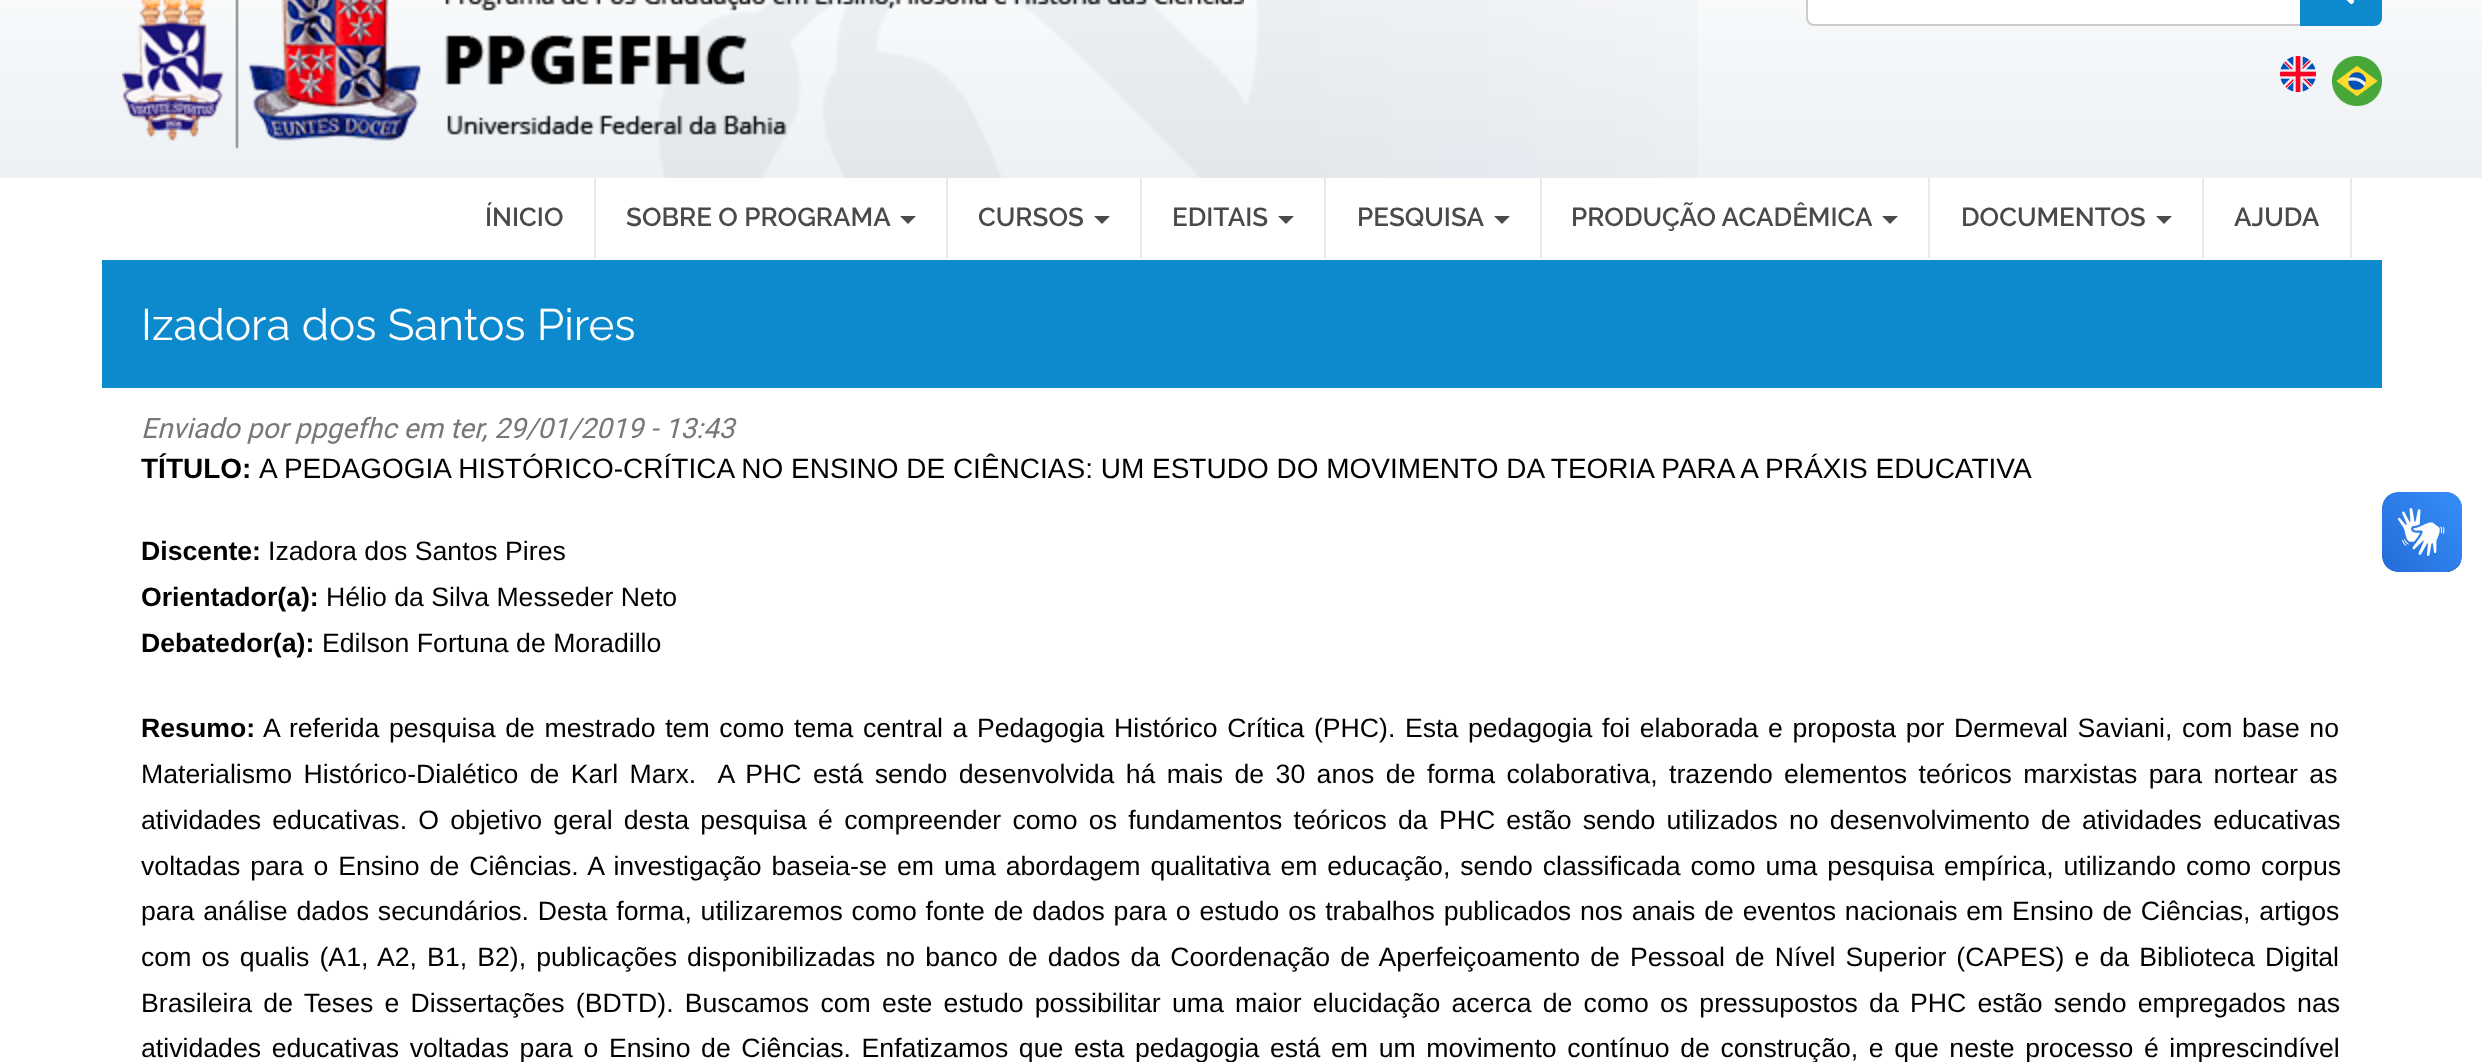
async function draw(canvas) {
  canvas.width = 2482
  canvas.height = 1062
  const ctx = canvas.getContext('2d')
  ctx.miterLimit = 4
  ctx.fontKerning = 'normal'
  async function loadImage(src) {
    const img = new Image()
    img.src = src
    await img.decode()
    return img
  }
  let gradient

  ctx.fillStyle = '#fff'
  ctx.fillRect(0, 0, 2482, 1062)
  gradient = ctx.createLinearGradient(1241, -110, 1241, 178)
  gradient.addColorStop(0, '#fff')
  gradient.addColorStop(1, '#ecf1f5')
  ctx.fillStyle = gradient
  ctx.fillRect(0, 0, 2482, 178)
  ctx.drawImage(await loadImage('image0.png'), 658, 0, 1039, 178)
  ctx.drawImage(await loadImage('image1.png'), 122, 0, 1122, 149)
  ctx.fillStyle = '#fff'
  ctx.beginPath()
  ctx.moveTo(1814, -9)
  ctx.lineTo(2301, -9)
  ctx.lineTo(2301, 25)
  ctx.lineTo(1814, 25)
  ctx.bezierCurveTo(1810, 25, 1807, 22, 1807, 18)
  ctx.lineTo(1807, -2)
  ctx.bezierCurveTo(1807, -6, 1810, -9, 1814, -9)
  ctx.closePath()
  ctx.fill()
  ctx.strokeStyle = '#ccc'
  ctx.lineWidth = 2
  ctx.stroke()
  ctx.fillStyle = '#0d8acd'
  ctx.beginPath()
  ctx.moveTo(2301, -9)
  ctx.lineTo(2374, -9)
  ctx.bezierCurveTo(2378, -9, 2381, -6, 2381, -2)
  ctx.lineTo(2381, 18)
  ctx.bezierCurveTo(2381, 22, 2378, 25, 2374, 25)
  ctx.lineTo(2301, 25)
  ctx.closePath()
  ctx.fill()
  ctx.strokeStyle = '#0d8acd'
  ctx.stroke()
  ctx.drawImage(await loadImage('image2.png'), 2346, 0, 9, 5)
  ctx.drawImage(await loadImage('image3.png'), 2280, 56, 36, 36)
  ctx.drawImage(await loadImage('image4.png'), 2332, 56, 50, 50)
  ctx.fillStyle = '#e5eaee'
  ctx.fillRect(594, 178, 2, 80)
  ctx.font = '600 26px Raleway'
  ctx.fillStyle = '#4a4a4c'
  ctx.fillText('ÍNICIO', 485, 226)
  ctx.fillStyle = '#e5eaee'
  ctx.fillRect(946, 178, 2, 80)
  ctx.fillStyle = '#4a4a4c'
  ctx.fillText('SOBRE O PROGRAMA', 626, 226)
  ctx.beginPath()
  ctx.moveTo(900, 216)
  ctx.lineTo(916, 216)
  ctx.lineTo(908, 224)
  ctx.closePath()
  ctx.fill()
  ctx.fillStyle = '#e5eaee'
  ctx.fillRect(1140, 178, 2, 80)
  ctx.fillStyle = '#4a4a4c'
  ctx.fillText('CURSOS', 978, 226)
  ctx.beginPath()
  ctx.moveTo(1094, 216)
  ctx.lineTo(1110, 216)
  ctx.lineTo(1102, 224)
  ctx.closePath()
  ctx.fill()
  ctx.fillStyle = '#e5eaee'
  ctx.fillRect(1324, 178, 2, 80)
  ctx.fillStyle = '#4a4a4c'
  ctx.fillText('EDITAIS', 1172, 226)
  ctx.beginPath()
  ctx.moveTo(1278, 216)
  ctx.lineTo(1294, 216)
  ctx.lineTo(1286, 224)
  ctx.closePath()
  ctx.fill()
  ctx.fillStyle = '#e5eaee'
  ctx.fillRect(1540, 178, 2, 80)
  ctx.fillStyle = '#4a4a4c'
  ctx.fillText('PESQUISA', 1357, 226)
  ctx.beginPath()
  ctx.moveTo(1494, 216)
  ctx.lineTo(1510, 216)
  ctx.lineTo(1502, 224)
  ctx.closePath()
  ctx.fill()
  ctx.fillStyle = '#e5eaee'
  ctx.fillRect(1928, 178, 2, 80)
  ctx.fillStyle = '#4a4a4c'
  ctx.fillText('PRODUÇÃO ACADÊMICA', 1571, 226)
  ctx.beginPath()
  ctx.moveTo(1882, 216)
  ctx.lineTo(1898, 216)
  ctx.lineTo(1890, 224)
  ctx.closePath()
  ctx.fill()
  ctx.fillStyle = '#e5eaee'
  ctx.fillRect(2202, 178, 2, 80)
  ctx.fillStyle = '#4a4a4c'
  ctx.fillText('DOCUMENTOS', 1961, 226)
  ctx.beginPath()
  ctx.moveTo(2156, 216)
  ctx.lineTo(2172, 216)
  ctx.lineTo(2164, 224)
  ctx.closePath()
  ctx.fill()
  ctx.fillStyle = '#e5eaee'
  ctx.fillRect(2350, 178, 2, 80)
  ctx.fillStyle = '#4a4a4c'
  ctx.fillText('AJUDA', 2234, 226)
  ctx.fillStyle = '#0d8acd'
  ctx.fillRect(102, 260, 2280, 128)
  ctx.font = '44px Raleway'
  ctx.fillStyle = '#fff'
  ctx.fillText('Izadora dos Santos Pires', 141, 340)
  ctx.font = 'italic 28px Roboto'
  ctx.fillStyle = '#777'
  ctx.fillText('Enviado por ppgefhc em ter, 29/01/2019 - 13:43', 141, 438)
  ctx.font = 'bold 28px Liberation Sans'
  ctx.fillStyle = '#000'
  ctx.fillText('TÍTULO:', 141, 478)
  ctx.font = '28px Liberation Sans'
  ctx.fillText('A PEDAGOGIA HISTÓRICO-CRÍTICA NO ENSINO DE CIÊNCIAS: UM ESTUDO DO MOVIMENTO DA TEORIA PARA A PRÁXIS EDUCATIVA', 259, 478)
  ctx.font = 'bold 26.67px Liberation Sans'
  ctx.fillText('Discente:', 141, 560)
  ctx.font = '26.67px Liberation Sans'
  ctx.fillText('Izadora dos Santos Pires', 268, 560)
  ctx.font = 'bold 26.67px Liberation Sans'
  ctx.fillText('Orientador(a):', 141, 606)
  ctx.font = '26.67px Liberation Sans'
  ctx.fillText('Hélio da Silva Messeder Neto', 326, 606)
  ctx.font = 'bold 26.67px Liberation Sans'
  ctx.fillText('Debatedor(a):', 141, 652)
  ctx.font = '26.67px Liberation Sans'
  ctx.fillText('Edilson Fortuna de Moradillo', 322, 652)
  ctx.font = 'bold 26.67px Liberation Sans'
  ctx.fillText('Resumo:', 141, 737)
  ctx.wordSpacing = '2.2px'
  ctx.font = '26.67px Liberation Sans'
  ctx.fillText('A referida pesquisa de mestrado tem como tema central a Pedagogia Histórico Crítica (PHC). Esta pedagogia foi elaborada e proposta por Dermeval Saviani, com base no', 263, 737)
  ctx.wordSpacing = '4px'
  ctx.fillText('Materialismo Histórico-Dialético de Karl Marx.  A PHC está sendo desenvolvida há mais de 30 anos de forma colaborativa, trazendo elementos teóricos marxistas para nortear as', 141, 783)
  ctx.wordSpacing = '3.8px'
  ctx.fillText('atividades educativas. O objetivo geral desta pesquisa é compreender como os fundamentos teóricos da PHC estão sendo utilizados no desenvolvimento de atividades educativas', 141, 829)
  ctx.wordSpacing = '2.5px'
  ctx.fillText('voltadas para o Ensino de Ciências. A investigação baseia-se em uma abordagem qualitativa em educação, sendo classificada como uma pesquisa empírica, utilizando como corpus', 141, 875)
  ctx.wordSpacing = '1.4px'
  ctx.fillText('para análise dados secundários. Desta forma, utilizaremos como fonte de dados para o estudo os trabalhos publicados nos anais de eventos nacionais em Ensino de Ciências, artigos', 141, 920)
  ctx.wordSpacing = '2.7px'
  ctx.fillText('com os qualis (A1, A2, B1, B2), publicações disponibilizadas no banco de dados da Coordenação de Aperfeiçoamento de Pessoal de Nível Superior (CAPES) e da Biblioteca Digital', 141, 966)
  ctx.wordSpacing = '3.8px'
  ctx.fillText('Brasileira de Teses e Dissertações (BDTD). Buscamos com este estudo possibilitar uma maior elucidação acerca de como os pressupostos da PHC estão sendo empregados nas', 141, 1012)
  ctx.wordSpacing = '3.2px'
  ctx.fillText('atividades educativas voltadas para o Ensino de Ciências. Enfatizamos que esta pedagogia está em um movimento contínuo de construção, e que neste processo é imprescindível', 141, 1057)
  ctx.drawImage(await loadImage('image5.png'), 2382, 492, 80, 80)
  ctx.drawImage(await loadImage('image6.png'), 2382, 492, 80, 80)
}

draw(document.querySelector('canvas'))
